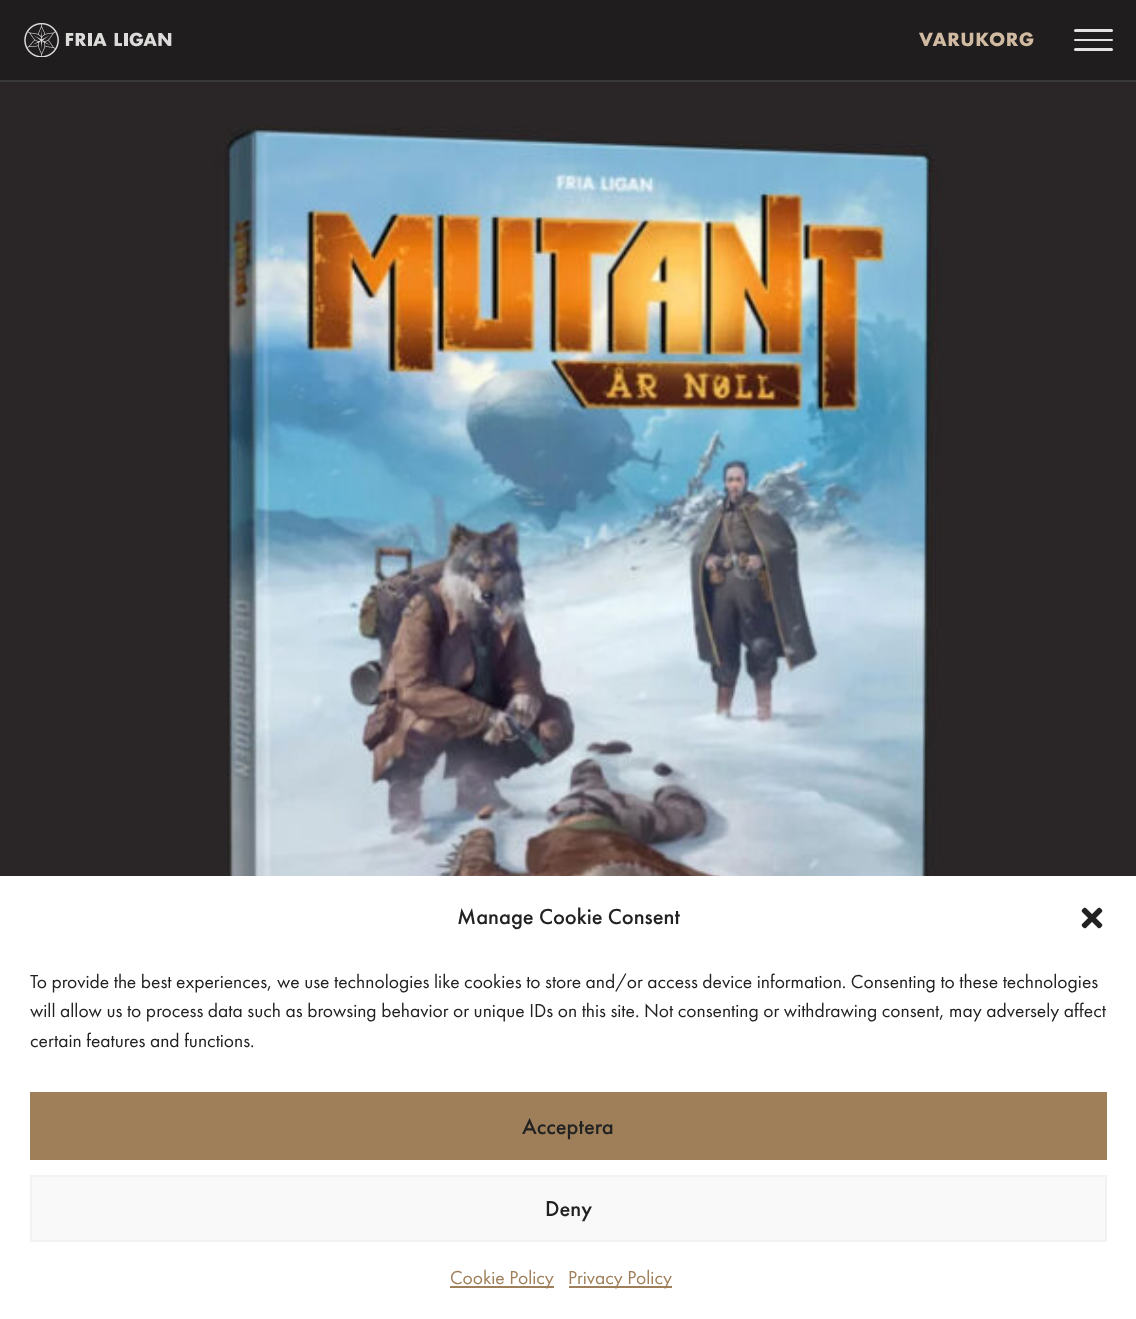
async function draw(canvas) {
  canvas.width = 1136
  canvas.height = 1319
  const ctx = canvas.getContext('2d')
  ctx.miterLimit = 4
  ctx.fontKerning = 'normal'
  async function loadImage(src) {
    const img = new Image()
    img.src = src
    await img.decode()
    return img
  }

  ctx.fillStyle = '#1f1d1d'
  ctx.fillRect(0, 0, 1136, 1319)
  ctx.fillStyle = '#393939'
  ctx.fillRect(0, 80, 1136, 2)
  ctx.drawImage(await loadImage('image0.png'), 24, 23, 148, 34)
  ctx.letterSpacing = '0.5px'
  ctx.font = 'bold 20px Futura PT'
  ctx.fillStyle = '#d0baa1'
  ctx.fillText('VARUKORG', 919, 46)
  ctx.fillStyle = '#e3e3e3'
  ctx.beginPath()
  ctx.roundRect(1074, 29, 39, 3, 1.5)
  ctx.fill()
  ctx.beginPath()
  ctx.roundRect(1074, 39, 39, 2, 1)
  ctx.fill()
  ctx.beginPath()
  ctx.roundRect(1074, 48, 39, 3, 1.5)
  ctx.fill()
  ctx.drawImage(await loadImage('image1.png'), 0, 82, 1136, 794)
  ctx.fillStyle = '#fff'
  ctx.fillRect(0, 876, 1136, 443)
  ctx.letterSpacing = '0px'
  ctx.font = '500 22.5px Futura PT'
  ctx.fillStyle = '#222'
  ctx.fillText('Manage Cookie Consent', 457, 924)
  ctx.drawImage(await loadImage('image2.png'), 1081, 907, 22, 22)
  ctx.font = '19.5px Futura PT'
  ctx.fillText('To provide the best experiences, we use technologies like cookies to store and/or access device information. Consenting to these technologies', 30, 988)
  ctx.fillText('will allow us to process data such as browsing behavior or unique IDs on this site. Not consenting or withdrawing consent, may adversely affect', 30, 1017)
  ctx.fillText('certain features and functions.', 30, 1047)
  ctx.fillStyle = '#9f7f59'
  ctx.fillRect(30, 1092, 1077, 68)
  ctx.font = '500 22.5px Futura PT'
  ctx.fillStyle = '#222'
  ctx.fillText('Acceptera', 522, 1134)
  ctx.fillStyle = '#f9f9f9'
  ctx.beginPath()
  ctx.rect(31, 1176, 1075, 65)
  ctx.fill()
  ctx.strokeStyle = '#f2f2f2'
  ctx.lineWidth = 2
  ctx.stroke()
  ctx.fillStyle = '#222'
  ctx.fillText('Deny', 545, 1216)
  ctx.fillStyle = '#9f7f59'
  ctx.fillRect(450, 1286, 104, 2)
  ctx.font = '19.5px Futura PT'
  ctx.fillText('Cookie Policy', 450, 1284)
  ctx.fillRect(569, 1286, 103, 2)
  ctx.fillText('Privacy Policy', 568, 1284)
}

draw(document.querySelector('canvas'))
